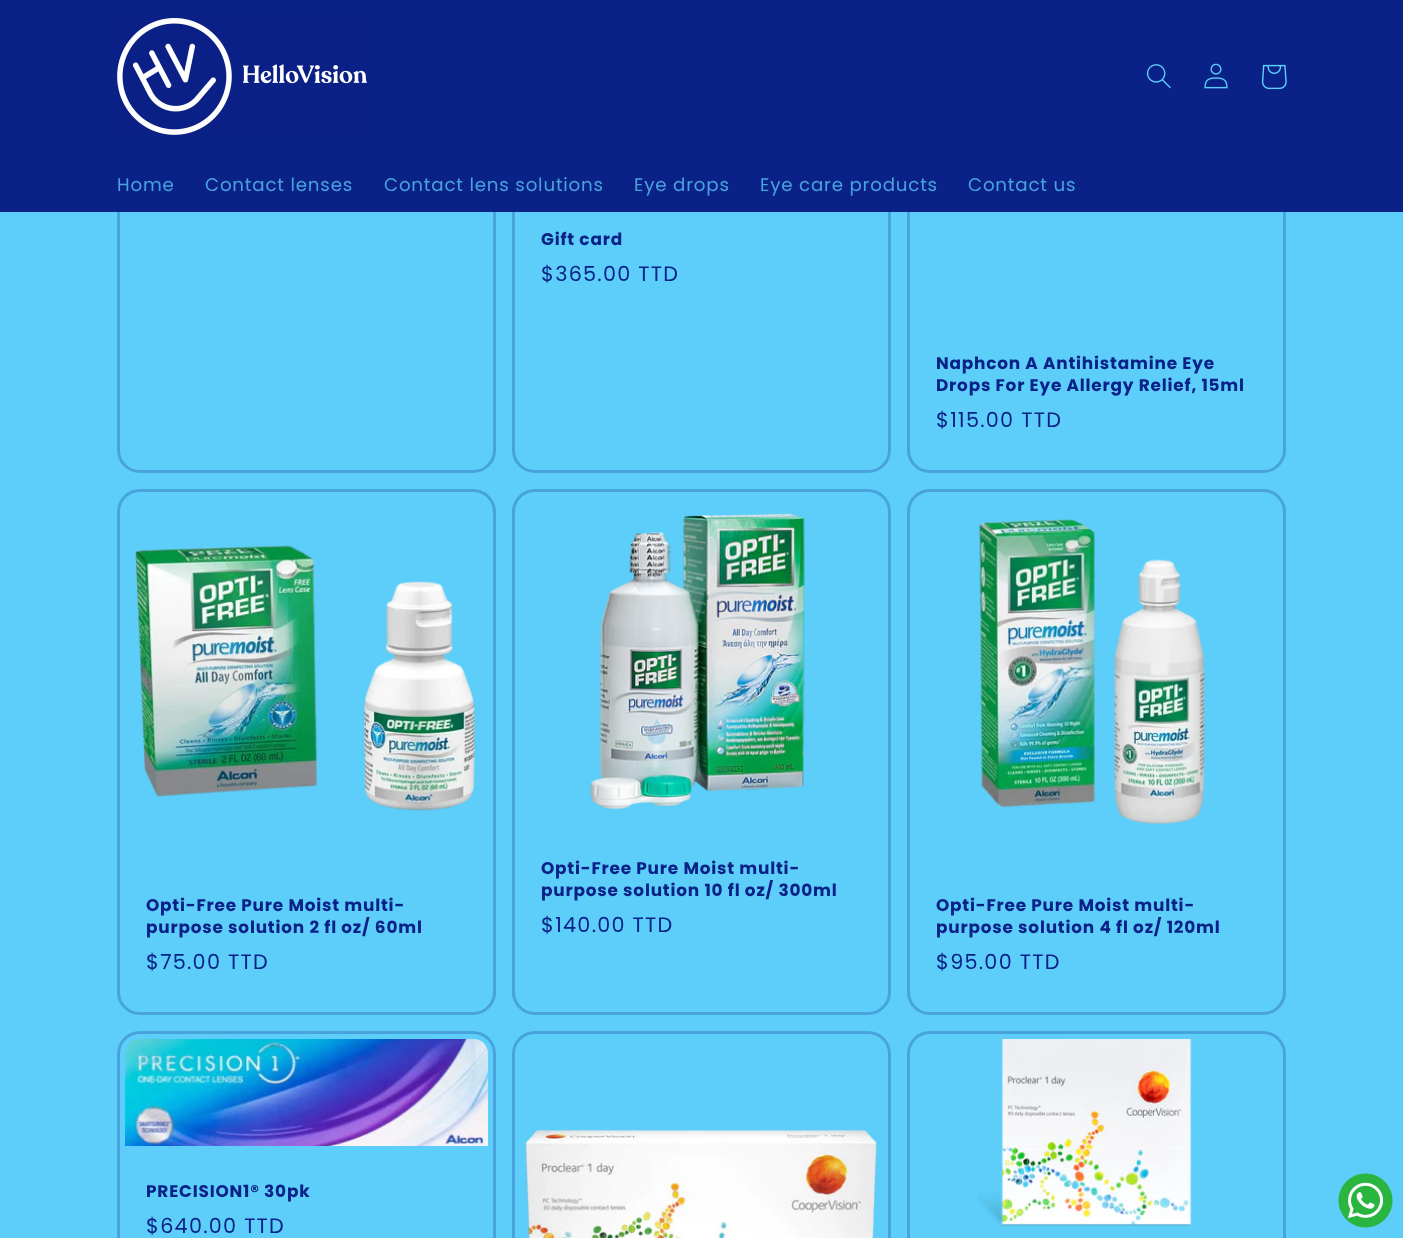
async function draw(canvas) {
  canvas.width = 1403
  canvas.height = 1238
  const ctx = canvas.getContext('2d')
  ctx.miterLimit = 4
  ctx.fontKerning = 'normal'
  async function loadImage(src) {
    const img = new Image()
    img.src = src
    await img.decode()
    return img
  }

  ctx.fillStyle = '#5ccef9'
  ctx.fillRect(0, 0, 1403, 1238)
  ctx.beginPath()
  ctx.roundRect(118.5, -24.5, 376, 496, 21.5)
  ctx.strokeStyle = '#48a3dd'
  ctx.lineWidth = 3
  ctx.stroke()
  ctx.beginPath()
  ctx.roundRect(513.5, -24.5, 376, 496, 21.5)
  ctx.stroke()
  ctx.beginPath()
  ctx.roundRect(908.5, -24.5, 376, 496, 21.5)
  ctx.stroke()
  ctx.fillStyle = '#0a2188'
  ctx.fillRect(0, 0, 1403, 212)
  ctx.drawImage(await loadImage('image0.png'), 117, 18, 250, 117)
  ctx.drawImage(await loadImage('image1.png'), 1146, 64, 25, 25)
  ctx.drawImage(await loadImage('image2.png'), 1204, 63, 24, 26)
  ctx.drawImage(await loadImage('image3.png'), 1261, 64, 26, 26)
  ctx.letterSpacing = '0.8px'
  ctx.font = '18.25px Poppins'
  ctx.fillStyle = '#48a3dd'
  ctx.fillText('Home', 117, 191)
  ctx.fillText('Contact lenses', 205, 191)
  ctx.fillText('Contact lens solutions', 384, 191)
  ctx.fillText('Eye drops', 634, 191)
  ctx.fillText('Eye care products', 760, 191)
  ctx.fillText('Contact us', 968, 191)
  ctx.font = 'bold 16.9px Poppins'
  ctx.fillStyle = '#0a2188'
  ctx.fillText('Gift card', 541, 245)
  ctx.letterSpacing = '1.25px'
  ctx.font = '20.75px Poppins'
  ctx.fillText('$365.00 TTD', 541, 281)
  ctx.letterSpacing = '0.8px'
  ctx.font = 'bold 16.9px Poppins'
  ctx.fillText('Naphcon A Antihistamine Eye', 936, 369)
  ctx.fillText('Drops For Eye Allergy Relief, 15ml', 936, 391)
  ctx.letterSpacing = '1.25px'
  ctx.font = '20.75px Poppins'
  ctx.fillText('$115.00 TTD', 936, 427)
  ctx.beginPath()
  ctx.roundRect(118.5, 490.5, 376, 523, 21.5)
  ctx.stroke()
  ctx.drawImage(await loadImage('image4.png'), 135, 545, 340, 266)
  ctx.letterSpacing = '0.8px'
  ctx.font = 'bold 16.9px Poppins'
  ctx.fillText('Opti-Free Pure Moist multi-', 146, 911)
  ctx.fillText('purpose solution 2 fl oz/ 60ml', 146, 933)
  ctx.letterSpacing = '1.25px'
  ctx.font = '20.75px Poppins'
  ctx.fillText('$75.00 TTD', 146, 969)
  ctx.beginPath()
  ctx.roundRect(513.5, 490.5, 376, 523, 21.5)
  ctx.stroke()
  ctx.drawImage(await loadImage('image5.png'), 589, 513, 216, 296)
  ctx.letterSpacing = '0.8px'
  ctx.font = 'bold 16.9px Poppins'
  ctx.fillText('Opti-Free Pure Moist multi-', 541, 874)
  ctx.fillText('purpose solution 10 fl oz/ 300ml', 541, 896)
  ctx.letterSpacing = '1.25px'
  ctx.font = '20.75px Poppins'
  ctx.fillText('$140.00 TTD', 541, 932)
  ctx.beginPath()
  ctx.roundRect(908.5, 490.5, 376, 523, 21.5)
  ctx.stroke()
  ctx.drawImage(await loadImage('image6.png'), 979, 519, 226, 306)
  ctx.letterSpacing = '0.8px'
  ctx.font = 'bold 16.9px Poppins'
  ctx.fillText('Opti-Free Pure Moist multi-', 936, 911)
  ctx.fillText('purpose solution 4 fl oz/ 120ml', 936, 933)
  ctx.letterSpacing = '1.25px'
  ctx.font = '20.75px Poppins'
  ctx.fillText('$95.00 TTD', 936, 969)
  ctx.beginPath()
  ctx.roundRect(118.5, 1032.5, 376, 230, 21.5)
  ctx.stroke()
  ctx.drawImage(await loadImage('image7.png'), 125, 1039, 363, 107)
  ctx.letterSpacing = '0.8px'
  ctx.font = 'bold 16.9px Poppins'
  ctx.fillText('PRECISION1® 30pk', 146, 1197)
  ctx.letterSpacing = '1.25px'
  ctx.font = '20.75px Poppins'
  ctx.fillText('$640.00 TTD', 146, 1233)
  ctx.beginPath()
  ctx.roundRect(513.5, 1032.5, 376, 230, 21.5)
  ctx.stroke()
  ctx.drawImage(await loadImage('image8.png'), 525, 1129, 352, 109)
  ctx.beginPath()
  ctx.roundRect(908.5, 1032.5, 376, 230, 21.5)
  ctx.stroke()
  ctx.drawImage(await loadImage('image9.png'), 978, 1039, 214, 188)
  ctx.drawImage(await loadImage('image10.png'), 1338, 1173, 55, 55)
}

draw(document.querySelector('canvas'))
